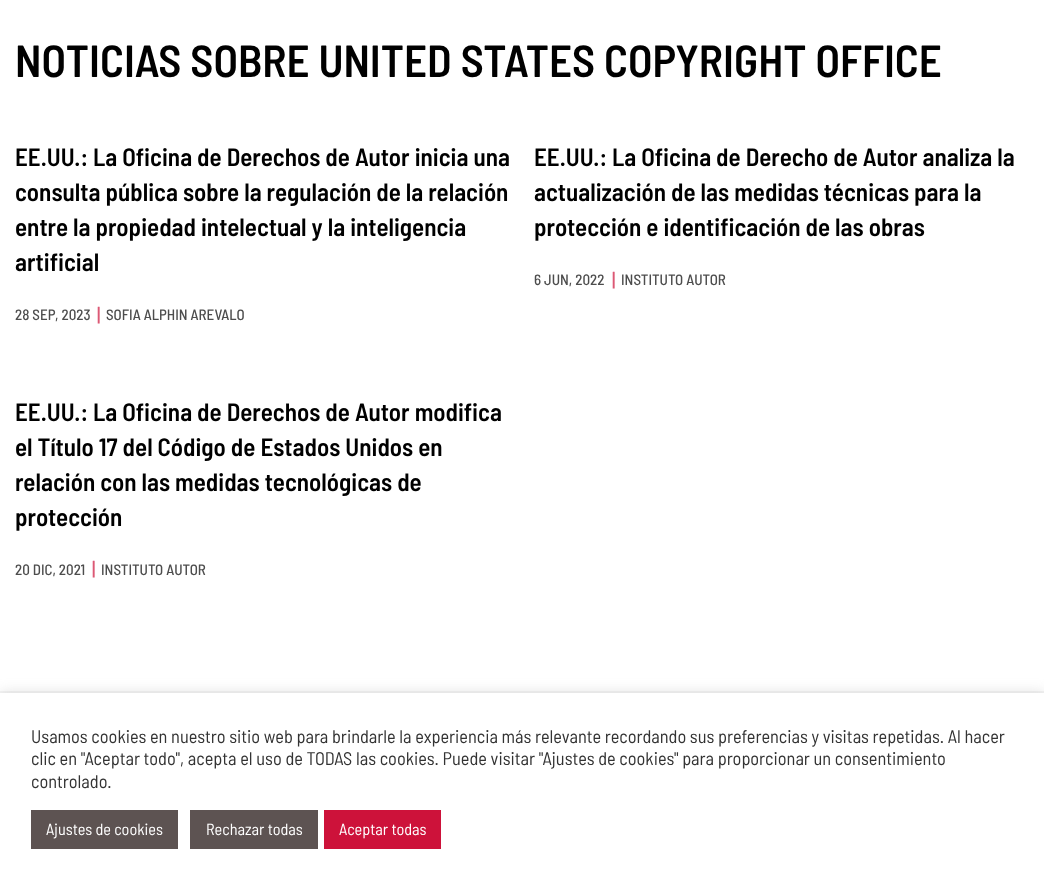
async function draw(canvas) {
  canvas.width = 1044
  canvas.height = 886
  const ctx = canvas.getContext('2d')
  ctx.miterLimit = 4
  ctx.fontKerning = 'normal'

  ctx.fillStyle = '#f4f4f4'
  ctx.fillRect(0, 0, 1044, 886)
  ctx.fillStyle = '#fff'
  ctx.fillRect(0, 0, 1044, 691)
  ctx.font = '600 45px Barlow Semi Condensed'
  ctx.fillStyle = '#000'
  ctx.fillText('NOTICIAS SOBRE UNITED STATES COPYRIGHT OFFICE', 15, 77)
  ctx.font = '600 25px Barlow Semi Condensed'
  ctx.fillText('EE.UU.: La Oficina de Derechos de Autor inicia una', 15, 166)
  ctx.fillText('consulta pública sobre la regulación de la relación', 15, 201)
  ctx.fillText('entre la propiedad intelectual y la inteligencia', 15, 236)
  ctx.fillText('artificial', 15, 271)
  ctx.font = '500 15px Barlow Semi Condensed'
  ctx.fillStyle = '#4d4d4d'
  ctx.fillText('28 SEP, 2023', 15, 320)
  ctx.font = '500 20px Barlow Semi Condensed'
  ctx.fillStyle = '#dc5975'
  ctx.fillText('|', 97, 322)
  ctx.font = '500 15px Barlow Semi Condensed'
  ctx.fillStyle = '#4d4d4d'
  ctx.fillText('SOFIA ALPHIN AREVALO', 106, 320)
  ctx.font = '600 25px Barlow Semi Condensed'
  ctx.fillStyle = '#000'
  ctx.fillText('EE.UU.: La Oficina de Derecho de Autor analiza la', 534, 166)
  ctx.fillText('actualización de las medidas técnicas para la', 534, 201)
  ctx.fillText('protección e identificación de las obras', 534, 236)
  ctx.font = '500 15px Barlow Semi Condensed'
  ctx.fillStyle = '#4d4d4d'
  ctx.fillText('6 JUN, 2022', 534, 285)
  ctx.font = '500 20px Barlow Semi Condensed'
  ctx.fillStyle = '#dc5975'
  ctx.fillText('|', 612, 287)
  ctx.font = '500 15px Barlow Semi Condensed'
  ctx.fillStyle = '#4d4d4d'
  ctx.fillText('INSTITUTO AUTOR', 621, 285)
  ctx.font = '600 25px Barlow Semi Condensed'
  ctx.fillStyle = '#000'
  ctx.fillText('EE.UU.: La Oficina de Derechos de Autor modifica', 15, 421)
  ctx.fillText('el Título 17 del Código de Estados Unidos en', 15, 456)
  ctx.fillText('relación con las medidas tecnológicas de', 15, 491)
  ctx.fillText('protección', 15, 526)
  ctx.font = '500 15px Barlow Semi Condensed'
  ctx.fillStyle = '#4d4d4d'
  ctx.fillText('20 DIC, 2021', 15, 575)
  ctx.font = '500 20px Barlow Semi Condensed'
  ctx.fillStyle = '#dc5975'
  ctx.fillText('|', 92, 576)
  ctx.font = '500 15px Barlow Semi Condensed'
  ctx.fillStyle = '#4d4d4d'
  ctx.fillText('INSTITUTO AUTOR', 101, 575)
  ctx.fillStyle = '#acabab4d'
  ctx.filter = 'blur(6px)'
  ctx.beginPath()
  ctx.rect(0, 691, 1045, 194)
  ctx.fill()
  ctx.filter = 'none'
  ctx.fillStyle = '#fff'
  ctx.fillRect(0, 693, 1044, 193)
  ctx.font = '18.33px Barlow Semi Condensed'
  ctx.fillStyle = '#333'
  ctx.fillText('Usamos cookies en nuestro sitio web para brindarle la experiencia más relevante recordando sus preferencias y visitas repetidas. Al hacer', 31, 743)
  ctx.fillText('clic en "Aceptar todo", acepta el uso de TODAS las cookies. Puede visitar "Ajustes de cookies" para proporcionar un consentimiento', 31, 765)
  ctx.fillText('controlado.', 31, 788)
  ctx.fillStyle = '#5d5352'
  ctx.fillRect(31, 810, 147, 39)
  ctx.font = '16.25px Barlow Semi Condensed'
  ctx.fillStyle = '#fff'
  ctx.fillText('Ajustes de cookies', 46, 835)
  ctx.fillStyle = '#5d5352'
  ctx.fillRect(190, 810, 128, 39)
  ctx.fillStyle = '#fff'
  ctx.fillText('Rechazar todas', 206, 835)
  ctx.fillStyle = '#cd123a'
  ctx.fillRect(324, 810, 117, 39)
  ctx.fillStyle = '#fff'
  ctx.fillText('Aceptar todas', 339, 835)
}

draw(document.querySelector('canvas'))
